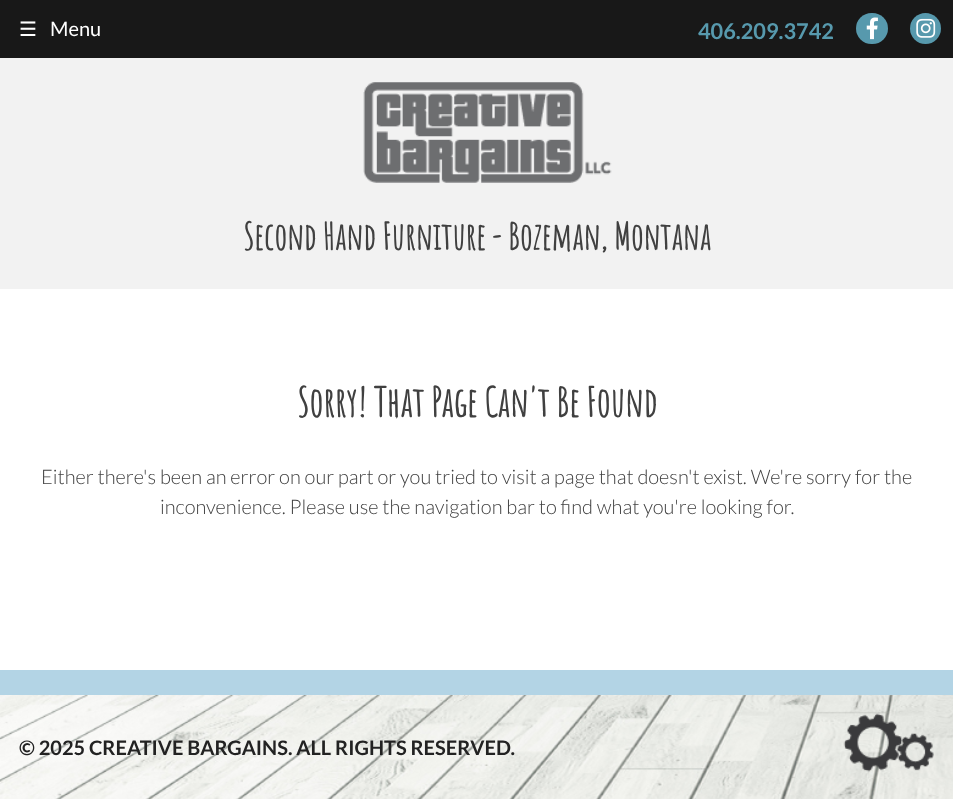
async function draw(canvas) {
  canvas.width = 953
  canvas.height = 799
  const ctx = canvas.getContext('2d')
  ctx.miterLimit = 4
  ctx.fontKerning = 'normal'
  async function loadImage(src) {
    const img = new Image()
    img.src = src
    await img.decode()
    return img
  }

  ctx.fillStyle = '#fff'
  ctx.fillRect(0, 0, 953, 799)
  ctx.fillStyle = '#f2f2f2'
  ctx.fillRect(0, 58, 953, 231)
  ctx.fillStyle = '#181818'
  ctx.fillRect(0, 0, 953, 58)
  ctx.font = '20px DejaVu Sans'
  ctx.fillStyle = '#fff'
  ctx.fillText('☰', 19, 36)
  ctx.font = '20px Lato'
  ctx.fillText('Menu', 50, 36)
  ctx.font = 'bold 21.75px Lato'
  ctx.fillStyle = '#5799ad'
  ctx.fillText('406.209.3742', 698, 39)
  ctx.beginPath()
  ctx.roundRect(856, 13, 32, 31, 15.5)
  ctx.fill()
  ctx.drawImage(await loadImage('image0.png'), 866, 17, 12, 23)
  ctx.beginPath()
  ctx.arc(925.5, 28.5, 15.5, 0, 2 * Math.PI)
  ctx.fill()
  ctx.drawImage(await loadImage('image1.png'), 916, 18, 20, 20)
  ctx.font = 'bold 36.7px Amatic SC'
  ctx.fillStyle = '#404040'
  ctx.fillText('Second Hand Furniture - Bozeman, Montana', 243, 250)
  ctx.drawImage(await loadImage('image2.png'), 363, 82, 249, 101)
  ctx.font = 'bold 40px Amatic SC'
  ctx.fillText('Sorry! That Page Can\'t Be Found', 297, 417)
  ctx.font = '300 20px Lato'
  ctx.fillText('Either there\'s been an error on our part or you tried to visit a page that doesn\'t exist. We\'re sorry for the', 41, 484)
  ctx.fillText('inconvenience. Please use the navigation bar to find what you\'re looking for.', 160, 514)
  ctx.drawImage(await loadImage('image3.png'), 0, 695, 953, 104)
  ctx.fillStyle = '#b3d4e5'
  ctx.fillRect(0, 670, 953, 25)
  ctx.font = 'bold 20px Lato'
  ctx.fillStyle = '#222'
  ctx.fillText('© 2025 CREATIVE BARGAINS. ALL RIGHTS RESERVED.', 19, 755)
  ctx.drawImage(await loadImage('image4.png'), 843, 713, 91, 59)
}

draw(document.querySelector('canvas'))
